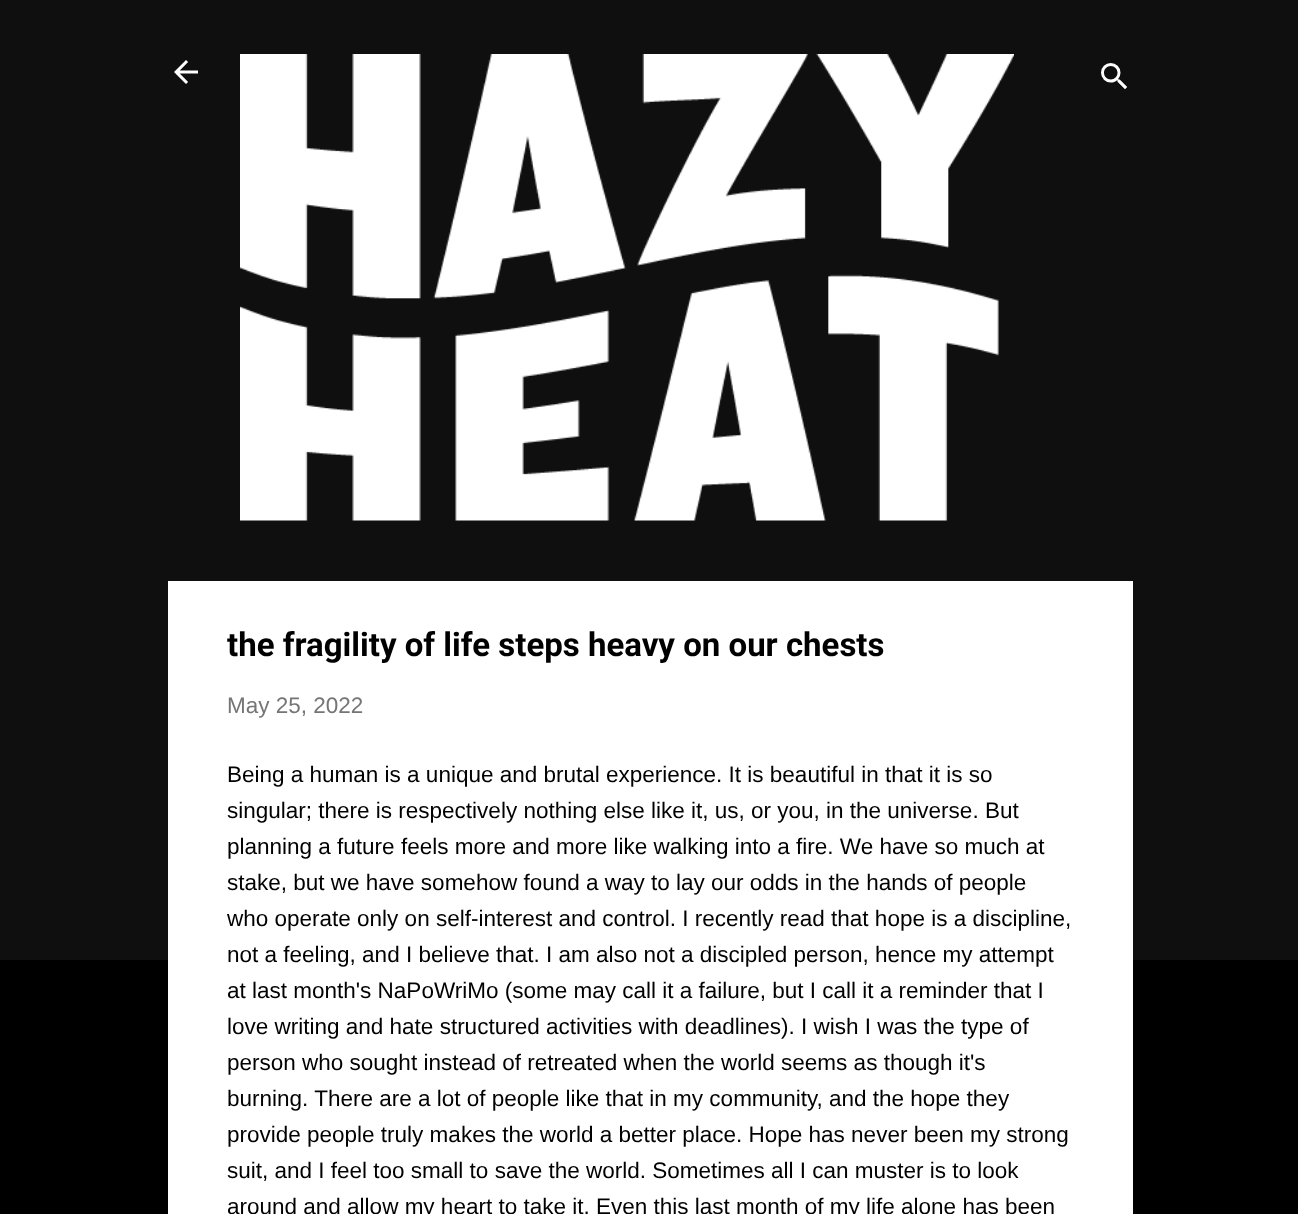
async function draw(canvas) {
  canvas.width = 1298
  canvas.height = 1214
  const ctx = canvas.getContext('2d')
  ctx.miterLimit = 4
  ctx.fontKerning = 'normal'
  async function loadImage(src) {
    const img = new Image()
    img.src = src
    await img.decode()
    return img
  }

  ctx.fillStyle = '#000'
  ctx.fillRect(0, 0, 1298, 1214)
  ctx.fillStyle = '#0f0f0f'
  ctx.fillRect(0, 0, 1298, 960)
  ctx.drawImage(await loadImage('image0.png'), 174, 60, 24, 24)
  ctx.drawImage(await loadImage('image1.png'), 240, 54, 774, 467)
  ctx.drawImage(await loadImage('image2.png'), 1101, 63, 26, 27)
  ctx.fillStyle = '#fff'
  ctx.fillRect(168, 581, 965, 633)
  ctx.font = 'bold 33px Roboto'
  ctx.fillStyle = '#000'
  ctx.fillText('the fragility of life steps heavy on our chests', 227, 656)
  ctx.font = '22.5px Liberation Sans'
  ctx.fillStyle = '#757575'
  ctx.fillText('May 25, 2022', 227, 713)
  ctx.fillStyle = '#000'
  ctx.fillText('Being a human is a unique and brutal experience. It is beautiful in that it is so', 227, 782)
  ctx.fillText('singular; there is respectively nothing else like it, us, or you, in the universe. But', 227, 818)
  ctx.fillText('planning a future feels more and more like walking into a fire. We have so much at', 227, 854)
  ctx.fillText('stake, but we have somehow found a way to lay our odds in the hands of people', 227, 890)
  ctx.fillText('who operate only on self-interest and control. I recently read that hope is a discipline,', 227, 926)
  ctx.fillText('not a feeling, and I believe that. I am also not a discipled person, hence my attempt', 227, 962)
  ctx.fillText('at last month\'s NaPoWriMo (some may call it a failure, but I call it a reminder that I', 227, 998)
  ctx.fillText('love writing and hate structured activities with deadlines). I wish I was the type of', 227, 1034)
  ctx.fillText('person who sought instead of retreated when the world seems as though it\'s', 227, 1070)
  ctx.fillText('burning. There are a lot of people like that in my community, and the hope they', 227, 1106)
  ctx.fillText('provide people truly makes the world a better place. Hope has never been my strong', 227, 1142)
  ctx.fillText('suit, and I feel too small to save the world. Sometimes all I can muster is to look', 227, 1178)
  ctx.fillText('around and allow my heart to take it. Even this last month of my life alone has been', 227, 1214)
}

draw(document.querySelector('canvas'))
